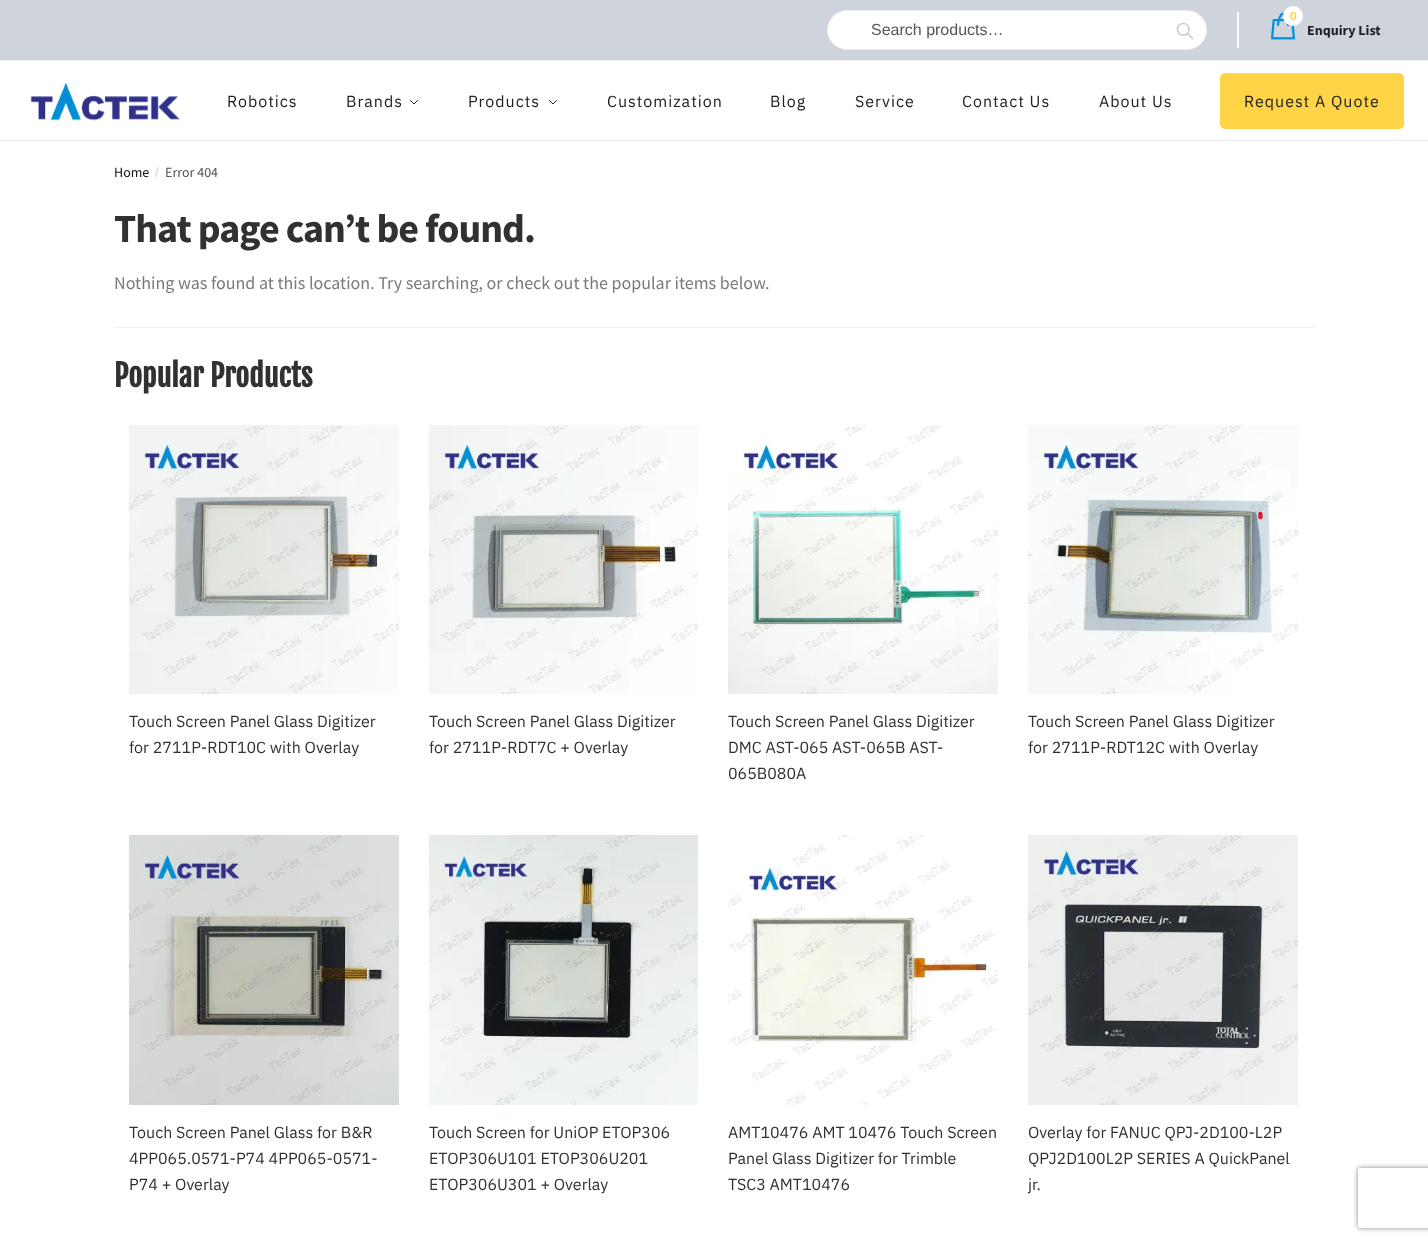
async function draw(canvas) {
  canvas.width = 1428
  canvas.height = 1242
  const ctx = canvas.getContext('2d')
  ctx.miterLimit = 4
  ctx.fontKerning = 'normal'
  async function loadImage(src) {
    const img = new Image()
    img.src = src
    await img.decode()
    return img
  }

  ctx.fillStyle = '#fff'
  ctx.fillRect(0, 0, 1428, 1242)
  ctx.fillStyle = '#ced3dc'
  ctx.fillRect(0, 0, 1428, 60)
  ctx.fillStyle = '#eee'
  ctx.fillRect(0, 60, 1428, 1)
  ctx.fillStyle = '#fff'
  ctx.beginPath()
  ctx.roundRect(827.5, 10.5, 379, 39, 19.5)
  ctx.fill()
  ctx.strokeStyle = '#eee'
  ctx.stroke()
  ctx.font = '16px Liberation Sans'
  ctx.fillStyle = '#555'
  ctx.fillText('Search products…', 871, 35)
  ctx.beginPath()
  ctx.moveTo(1192.5, 38.5)
  ctx.lineTo(1187.5, 33.5)
  ctx.moveTo(1189, 29.5)
  ctx.bezierCurveTo(1189, 37, 1177.5, 37, 1177.5, 29.5)
  ctx.bezierCurveTo(1177.5, 21.5, 1189, 21.5, 1189, 29.5)
  ctx.closePath()
  ctx.strokeStyle = '#ccc'
  ctx.lineWidth = 1.7
  ctx.lineCap = 'round'
  ctx.lineJoin = 'round'
  ctx.stroke()
  ctx.fillStyle = '#fff'
  ctx.fillRect(1237, 12, 2, 36)
  ctx.drawImage(await loadImage('image0.png'), 1271, 12, 24, 28)
  ctx.beginPath()
  ctx.arc(1293, 16, 10, 0, 2 * Math.PI)
  ctx.fill()
  ctx.font = 'bold 12px Liberation Sans'
  ctx.fillStyle = '#ffd447'
  ctx.fillText('0', 1290, 20)
  ctx.font = 'bold 14px Source Sans Pro'
  ctx.fillStyle = '#222'
  ctx.fillText('Enquiry List', 1307, 35)
  ctx.fillStyle = '#eee'
  ctx.fillRect(0, 140, 1428, 1)
  ctx.drawImage(await loadImage('image1.png'), 30, 82, 150, 39)
  ctx.letterSpacing = '1px'
  ctx.font = '16px IBM Plex Sans'
  ctx.fillStyle = '#222'
  ctx.fillText('Robotics', 227, 107)
  ctx.fillText('Brands', 346, 107)
  ctx.beginPath()
  ctx.moveTo(417.5, 100.5)
  ctx.lineTo(414, 104)
  ctx.lineTo(410.5, 100.5)
  ctx.strokeStyle = '#222'
  ctx.lineWidth = 1
  ctx.stroke()
  ctx.fillText('Products', 468, 107)
  ctx.beginPath()
  ctx.moveTo(556.5, 100.5)
  ctx.lineTo(553, 104)
  ctx.lineTo(549.5, 100.5)
  ctx.stroke()
  ctx.fillText('Customization', 607, 107)
  ctx.fillText('Blog', 770, 107)
  ctx.fillText('Service', 855, 107)
  ctx.fillText('Contact Us', 962, 107)
  ctx.fillText('About Us', 1099, 107)
  ctx.fillStyle = '#ffd447'
  ctx.beginPath()
  ctx.roundRect(1220, 73, 184, 56, 5)
  ctx.fill()
  ctx.fillStyle = '#222'
  ctx.fillText('Request A Quote', 1244, 107)
  ctx.letterSpacing = '0px'
  ctx.font = '14px Source Sans Pro'
  ctx.fillStyle = '#111'
  ctx.fillText('Home', 114, 177)
  ctx.font = '11px Source Sans Pro'
  ctx.fillStyle = '#bbb'
  ctx.fillText('/', 155, 175)
  ctx.font = '14px Source Sans Pro'
  ctx.fillStyle = '#555'
  ctx.fillText('Error 404', 165, 177)
  ctx.letterSpacing = '-1px'
  ctx.font = 'bold 40px Source Sans Pro'
  ctx.fillStyle = '#313131'
  ctx.fillText('That page can’t be found.', 114, 242)
  ctx.letterSpacing = '0px'
  ctx.font = '18px Source Sans Pro'
  ctx.fillStyle = '#7a7a7a'
  ctx.fillText('Nothing was found at this location. Try searching, or check out the popular items below.', 114, 289)
  ctx.fillStyle = '#eee'
  ctx.fillRect(114, 327, 1200, 1)
  ctx.font = 'bold 30px Fjalla One'
  ctx.fillStyle = '#313131'
  ctx.fillText('Popular Products', 114, 387)
  ctx.drawImage(await loadImage('image2.png'), 129, 425, 270, 269)
  ctx.font = '16px IBM Plex Sans'
  ctx.fillText('Touch Screen Panel Glass Digitizer', 129, 727)
  ctx.fillText('for 2711P-RDT10C with Overlay', 129, 753)
  ctx.drawImage(await loadImage('image3.png'), 429, 425, 269, 269)
  ctx.fillText('Touch Screen Panel Glass Digitizer', 429, 727)
  ctx.fillText('for 2711P-RDT7C + Overlay', 429, 753)
  ctx.drawImage(await loadImage('image4.png'), 728, 425, 270, 269)
  ctx.fillText('Touch Screen Panel Glass Digitizer', 728, 727)
  ctx.fillText('DMC AST-065 AST-065B AST-', 728, 753)
  ctx.fillText('065B080A', 728, 779)
  ctx.drawImage(await loadImage('image5.png'), 1028, 425, 270, 269)
  ctx.fillText('Touch Screen Panel Glass Digitizer', 1028, 727)
  ctx.fillText('for 2711P-RDT12C with Overlay', 1028, 753)
  ctx.drawImage(await loadImage('image6.png'), 129, 835, 270, 270)
  ctx.fillText('Touch Screen Panel Glass for B&R', 129, 1138)
  ctx.fillText('4PP065.0571-P74 4PP065-0571-', 129, 1164)
  ctx.fillText('P74 + Overlay', 129, 1190)
  ctx.drawImage(await loadImage('image7.png'), 429, 835, 269, 270)
  ctx.fillText('Touch Screen for UniOP ETOP306', 429, 1138)
  ctx.fillText('ETOP306U101 ETOP306U201', 429, 1164)
  ctx.fillText('ETOP306U301 + Overlay', 429, 1190)
  ctx.drawImage(await loadImage('image8.png'), 728, 835, 270, 270)
  ctx.fillText('AMT10476 AMT 10476 Touch Screen', 728, 1138)
  ctx.fillText('Panel Glass Digitizer for Trimble', 728, 1164)
  ctx.fillText('TSC3 AMT10476', 728, 1190)
  ctx.drawImage(await loadImage('image9.png'), 1028, 835, 270, 270)
  ctx.fillText('Overlay for FANUC QPJ-2D100-L2P', 1028, 1138)
  ctx.fillText('QPJ2D100L2P SERIES A QuickPanel', 1028, 1164)
  ctx.fillText('jr.', 1028, 1190)
  ctx.save()
  ctx.beginPath()
  ctx.moveTo(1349, 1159)
  ctx.lineTo(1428, 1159)
  ctx.lineTo(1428, 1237)
  ctx.lineTo(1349, 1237)
  ctx.closePath()
  ctx.moveTo(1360, 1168)
  ctx.lineTo(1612, 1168)
  ctx.bezierCurveTo(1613, 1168, 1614, 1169, 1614, 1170)
  ctx.lineTo(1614, 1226)
  ctx.bezierCurveTo(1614, 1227, 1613, 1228, 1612, 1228)
  ctx.lineTo(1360, 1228)
  ctx.bezierCurveTo(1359, 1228, 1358, 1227, 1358, 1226)
  ctx.lineTo(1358, 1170)
  ctx.bezierCurveTo(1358, 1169, 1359, 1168, 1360, 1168)
  ctx.closePath()
  ctx.clip('evenodd')
  ctx.fillStyle = '#808080'
  ctx.filter = 'blur(2.5px)'
  ctx.beginPath()
  ctx.roundRect(1358, 1168, 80, 60, 2)
  ctx.fill()
  ctx.filter = 'none'
  ctx.restore()
}

draw(document.querySelector('canvas'))
